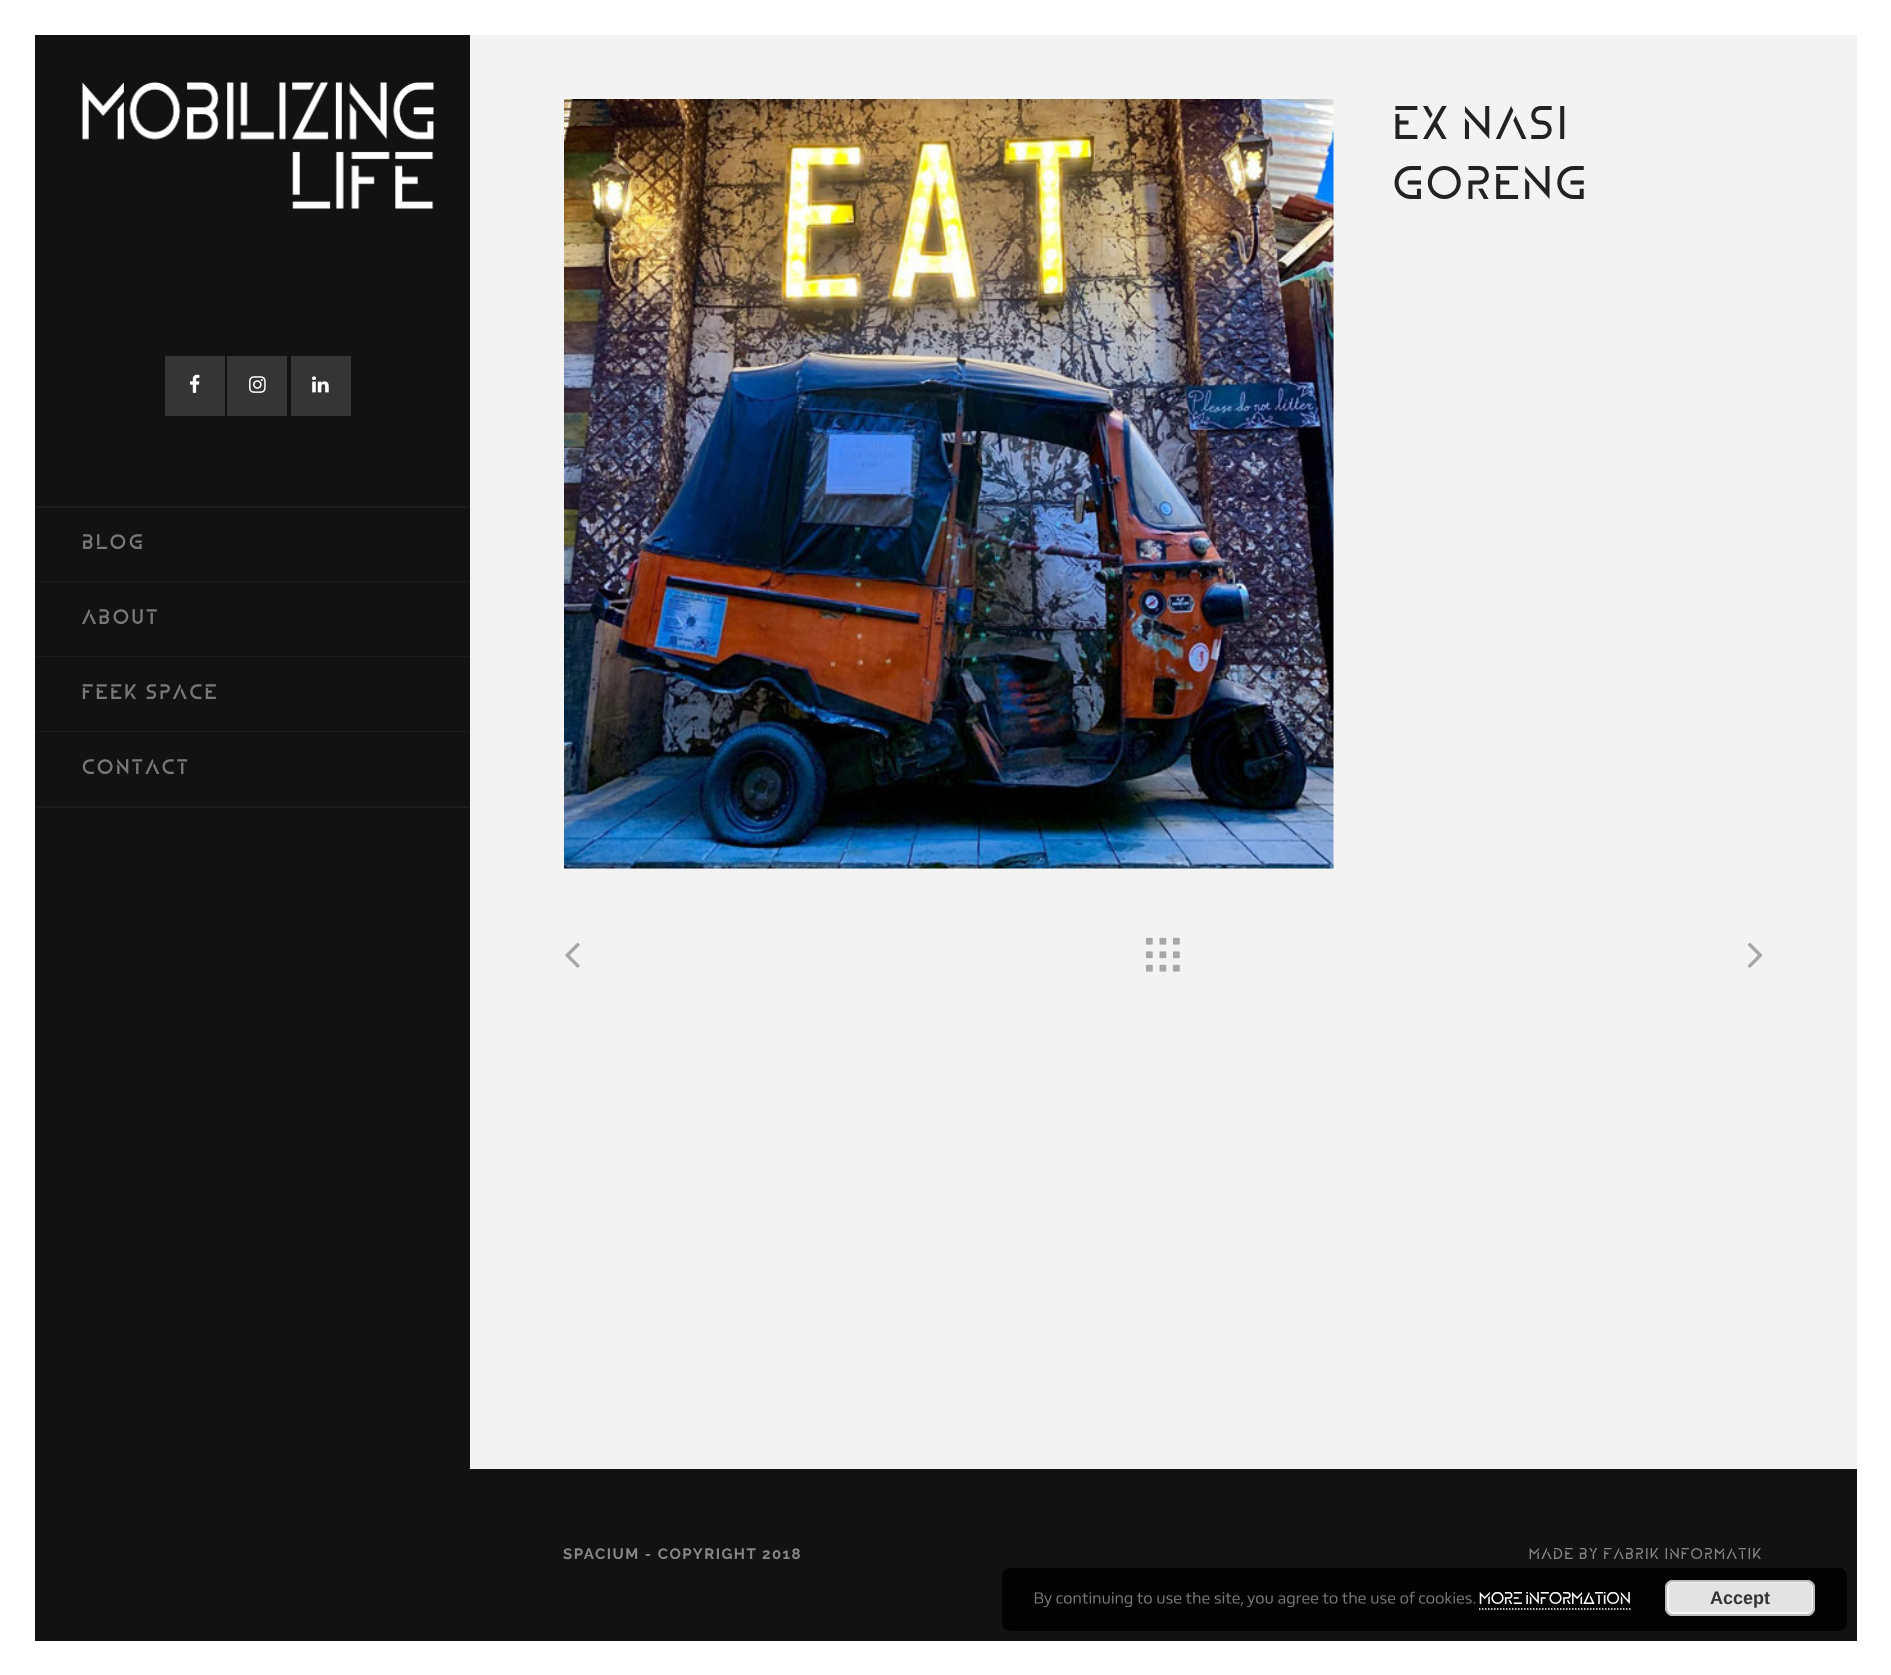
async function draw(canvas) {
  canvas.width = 1891
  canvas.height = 1675
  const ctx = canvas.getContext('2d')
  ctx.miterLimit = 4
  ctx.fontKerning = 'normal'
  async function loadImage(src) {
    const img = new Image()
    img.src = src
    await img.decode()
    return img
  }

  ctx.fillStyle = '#f3f3f3'
  ctx.fillRect(0, 0, 1891, 1675)
  ctx.fillStyle = '#fff'
  ctx.fillRect(0, 0, 1891, 35)
  ctx.fillRect(0, 35, 35, 1606)
  ctx.drawImage(await loadImage('image0.png'), 564, 99, 770, 770)
  ctx.letterSpacing = '3px'
  ctx.font = '45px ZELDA'
  ctx.fillStyle = '#222'
  ctx.fillText('EX NASI', 1393, 139)
  ctx.fillText('GORENG', 1393, 199)
  ctx.drawImage(await loadImage('image1.png'), 565, 942, 15, 26)
  ctx.drawImage(await loadImage('image2.png'), 1146, 937, 34, 35)
  ctx.drawImage(await loadImage('image3.png'), 1747, 942, 16, 26)
  ctx.fillStyle = '#fff'
  ctx.fillRect(1857, 35, 34, 1606)
  ctx.fillRect(0, 1641, 1891, 34)
  ctx.fillStyle = '#121212'
  ctx.fillRect(35, 35, 435, 1606)
  ctx.drawImage(await loadImage('image4.png'), 82, 82, 352, 127)
  ctx.fillStyle = '#353535'
  ctx.fillRect(165, 356, 60, 60)
  ctx.drawImage(await loadImage('image5.png'), 190, 374, 10, 19)
  ctx.fillRect(227, 356, 60, 60)
  ctx.drawImage(await loadImage('image6.png'), 249, 376, 17, 17)
  ctx.fillRect(291, 356, 60, 60)
  ctx.drawImage(await loadImage('image7.png'), 312, 376, 17, 17)
  ctx.fillStyle = '#1c1c1c'
  ctx.fillRect(35, 506, 435, 2)
  ctx.font = 'bold 19.5px ZELDA'
  ctx.fillStyle = '#787878'
  ctx.fillText('BLOG', 82, 549)
  ctx.fillStyle = '#1c1c1c'
  ctx.fillRect(35, 581, 435, 1)
  ctx.fillStyle = '#787878'
  ctx.fillText('ABOUT', 82, 624)
  ctx.fillStyle = '#1c1c1c'
  ctx.fillRect(35, 656, 435, 1)
  ctx.fillStyle = '#787878'
  ctx.fillText('FEEK SPACE', 82, 699)
  ctx.fillStyle = '#1c1c1c'
  ctx.fillRect(35, 731, 435, 1)
  ctx.fillStyle = '#787878'
  ctx.fillText('CONTACT', 82, 774)
  ctx.fillStyle = '#1c1c1c'
  ctx.fillRect(35, 806, 435, 2)
  ctx.fillStyle = '#121212'
  ctx.fillRect(470, 1469, 1387, 172)
  ctx.letterSpacing = '1.5px'
  ctx.font = 'bold 15px Raleway'
  ctx.fillStyle = '#878787'
  ctx.fillText('SPACIUM - COPYRIGHT 2018', 563, 1559)
  ctx.font = '15px ZELDA'
  ctx.fillText('MADE BY FABRIK INFORMATIK', 1529, 1559)
  ctx.fillStyle = '#030303'
  ctx.beginPath()
  ctx.roundRect(1002, 1568, 845, 63, 8)
  ctx.fill()
  ctx.drawImage(await loadImage('image8.png'), 1034, 1591, 442, 17)
  ctx.letterSpacing = '0px'
  ctx.font = '16.5px ZELDA'
  ctx.fillStyle = '#fff'
  ctx.fillText('more information', 1479, 1604)
  ctx.beginPath()
  ctx.moveTo(1479, 1609)
  ctx.lineTo(1632, 1609)
  ctx.strokeStyle = '#fff'
  ctx.lineWidth = 1.5
  ctx.setLineDash([1.5, 1.5])
  ctx.stroke()
  ctx.fillStyle = '#e3e3e3'
  ctx.beginPath()
  ctx.roundRect(1665, 1580, 150, 36, 8)
  ctx.fill()
  ctx.beginPath()
  ctx.roundRect(1668, 1582, 145, 31, 5)
  ctx.strokeStyle = '#f6f6f6'
  ctx.lineWidth = 2
  ctx.setLineDash([])
  ctx.stroke()
  ctx.beginPath()
  ctx.roundRect(1666, 1581, 148, 34, 7)
  ctx.strokeStyle = '#bbb'
  ctx.stroke()
  ctx.font = 'bold 18px Liberation Sans'
  ctx.fillStyle = '#333'
  ctx.fillText('Accept', 1710, 1604)
}

draw(document.querySelector('canvas'))
